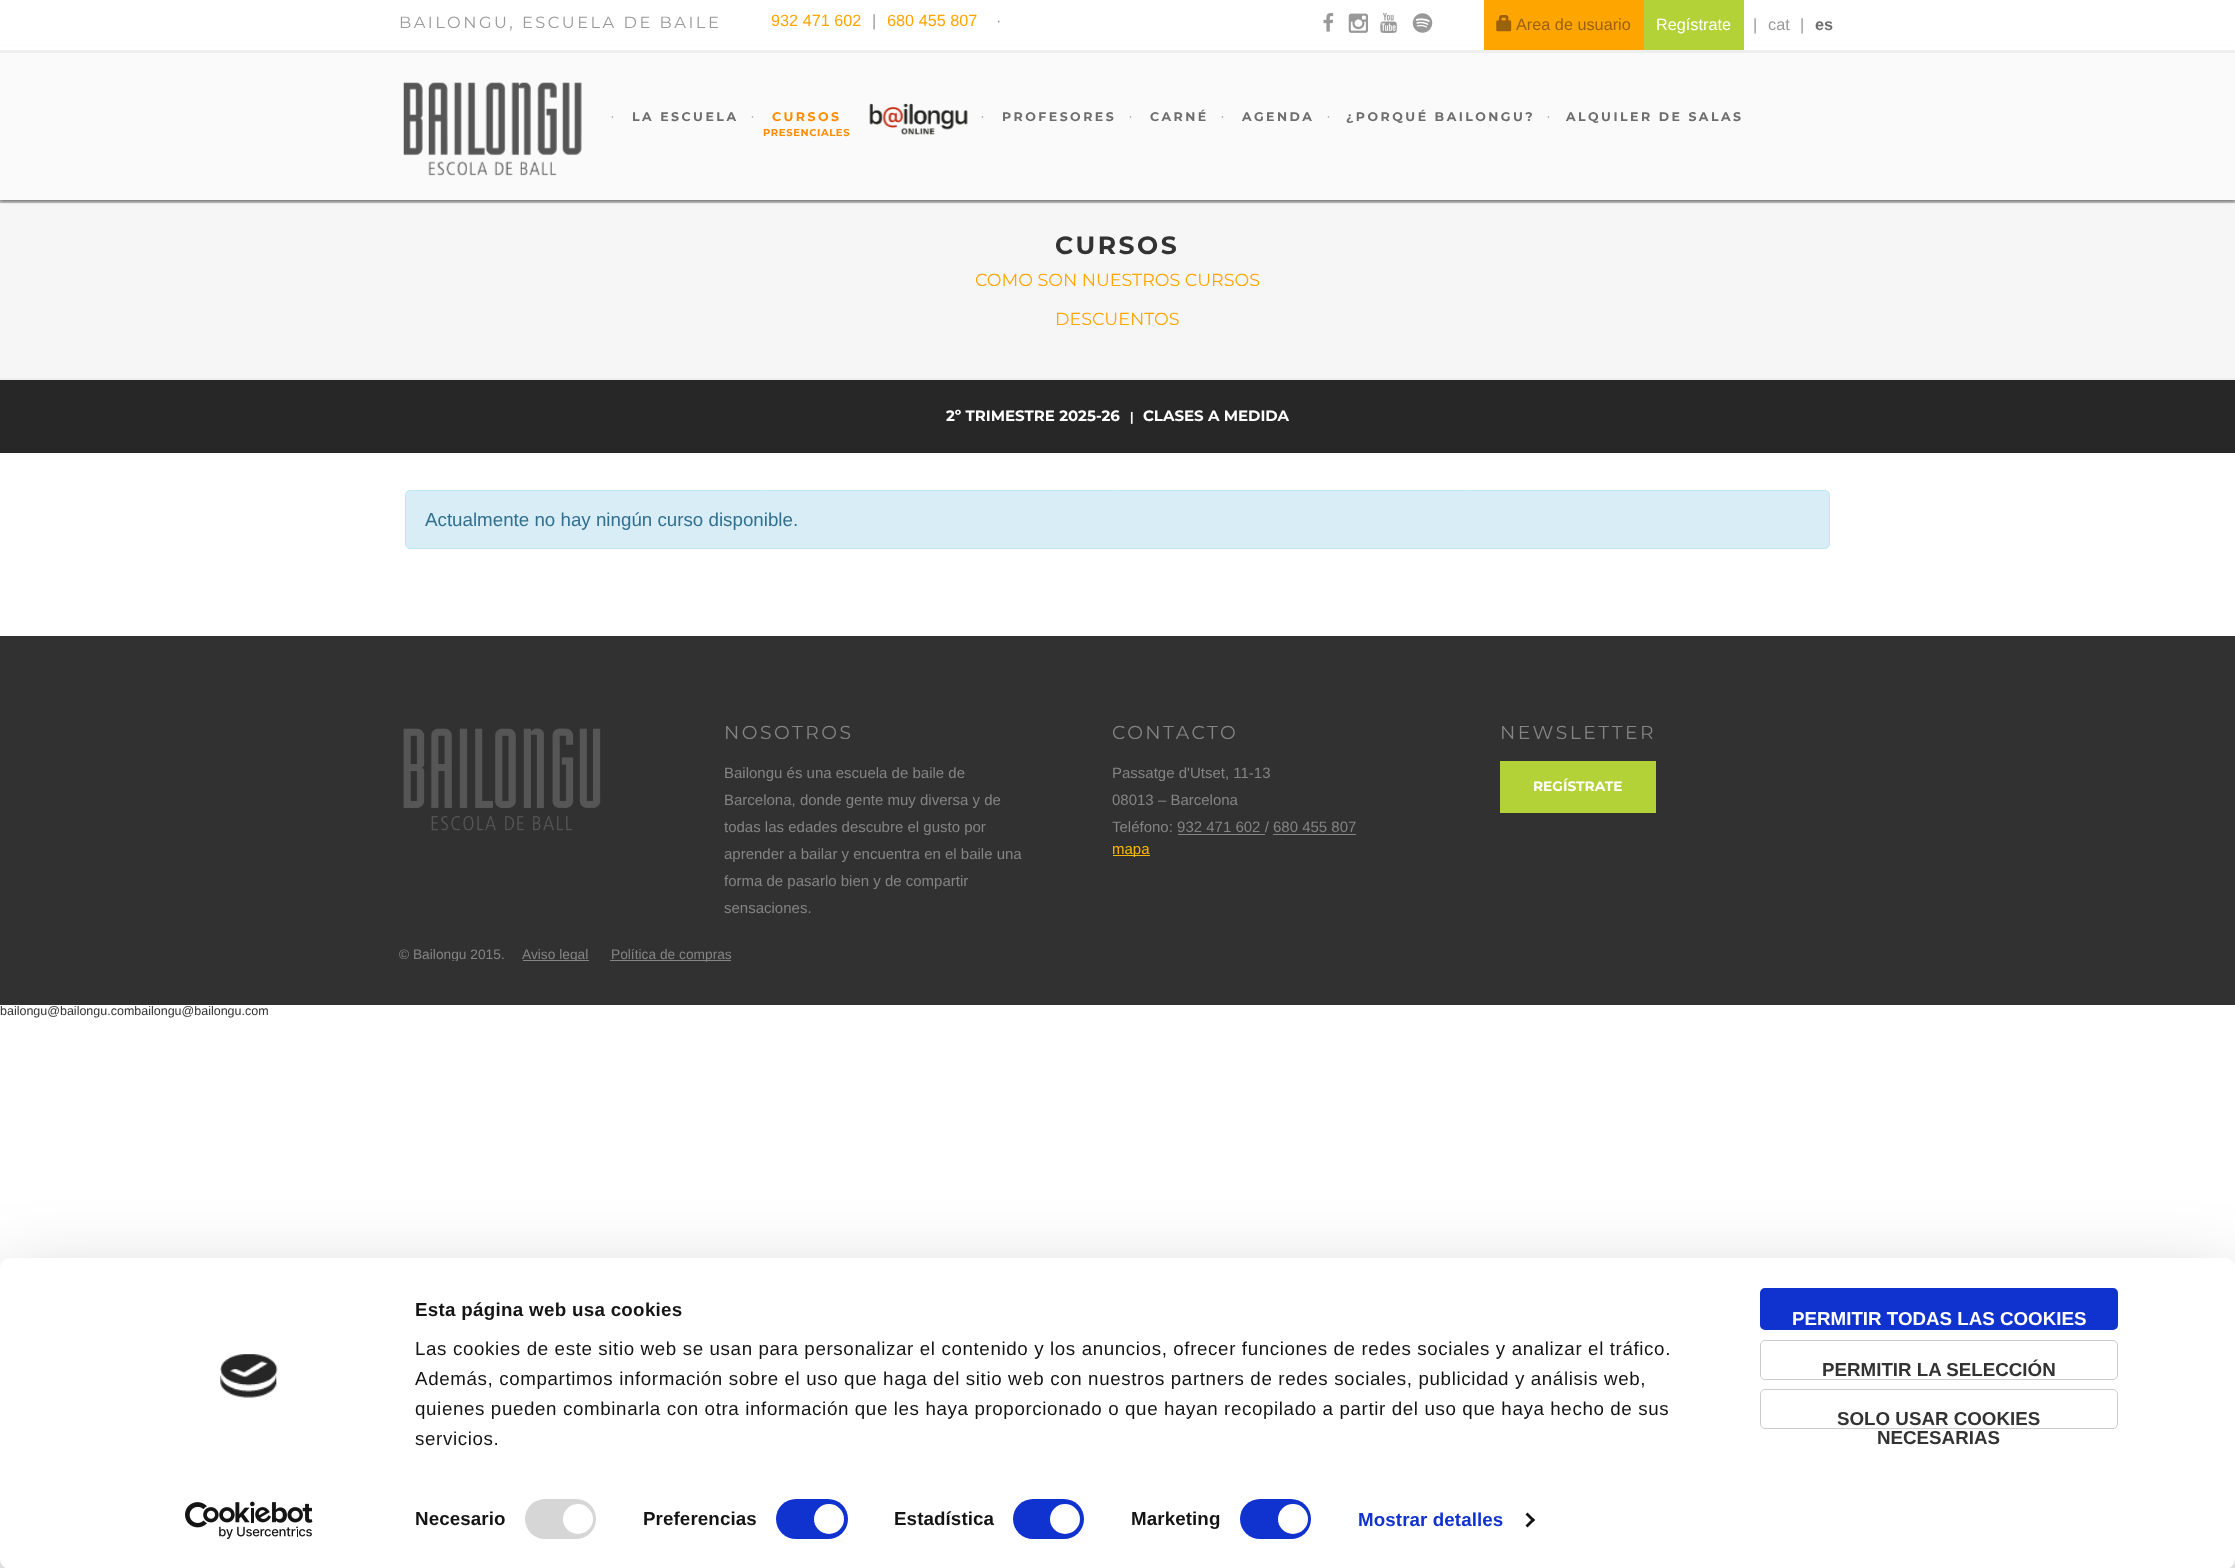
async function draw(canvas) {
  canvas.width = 2235
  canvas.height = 1568
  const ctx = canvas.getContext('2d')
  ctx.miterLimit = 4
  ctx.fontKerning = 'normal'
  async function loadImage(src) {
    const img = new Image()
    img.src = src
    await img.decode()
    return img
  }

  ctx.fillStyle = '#fff'
  ctx.fillRect(0, 0, 2235, 1568)
  ctx.fillStyle = '#f6f6f6'
  ctx.fillRect(0, 203, 2235, 175)
  ctx.fillStyle = '#c4c4c4'
  ctx.fillRect(0, 200, 2235, 3)
  ctx.fillStyle = '#333'
  ctx.filter = 'blur(2px)'
  ctx.beginPath()
  ctx.rect(0, 50, 2235, 150)
  ctx.fill()
  ctx.filter = 'none'
  ctx.fillStyle = '#fff'
  ctx.fillRect(0, 46, 2235, 4)
  ctx.fillStyle = '#eee'
  ctx.fillRect(0, 50, 2235, 3)
  ctx.letterSpacing = '2.5px'
  ctx.font = '16.25px Montserrat'
  ctx.fillStyle = '#999'
  ctx.fillText('BAILONGU, ESCUELA DE BAILE', 399, 28)
  ctx.letterSpacing = '0px'
  ctx.font = '16.25px Liberation Sans'
  ctx.fillStyle = '#ffa500'
  ctx.fillText('932 471 602', 771, 26)
  ctx.fillStyle = '#999'
  ctx.fillText('|', 872, 26)
  ctx.fillStyle = '#ffa500'
  ctx.fillText('680 455 807', 887, 26)
  ctx.fillStyle = '#999'
  ctx.fillText('·', 996, 26)
  ctx.drawImage(await loadImage('image0.png'), 1323, 13, 11, 19)
  ctx.drawImage(await loadImage('image1.png'), 1348, 13, 20, 20)
  ctx.drawImage(await loadImage('image2.png'), 1380, 13, 17, 20)
  ctx.drawImage(await loadImage('image3.png'), 1412, 13, 21, 20)
  ctx.fillStyle = '#ffa500'
  ctx.fillRect(1484, 0, 160, 50)
  ctx.drawImage(await loadImage('image4.png'), 1496, 15, 16, 17)
  ctx.fillStyle = '#99620b'
  ctx.fillText('Area de usuario', 1516, 30)
  ctx.fillStyle = '#b3d237'
  ctx.fillRect(1644, 0, 100, 50)
  ctx.fillStyle = '#fff'
  ctx.fillText('Regístrate', 1656, 30)
  ctx.fillStyle = '#999'
  ctx.fillText('|', 1753, 30)
  ctx.fillText('cat', 1768, 30)
  ctx.fillText('|', 1800, 30)
  ctx.font = 'bold 16.25px Liberation Sans'
  ctx.fillStyle = '#6e6e6e'
  ctx.fillText('es', 1815, 30)
  ctx.fillStyle = '#fafafa'
  ctx.fillRect(0, 53, 2235, 147)
  ctx.drawImage(await loadImage('image5.png'), 403, 82, 179, 94)
  ctx.font = '15px Liberation Sans'
  ctx.fillStyle = '#afafaf'
  ctx.fillText('·', 610, 121)
  ctx.letterSpacing = '2.5px'
  ctx.font = 'bold 12.5px Montserrat'
  ctx.fillStyle = '#6e6e6e'
  ctx.fillText('LA ESCUELA', 632, 121)
  ctx.letterSpacing = '0px'
  ctx.font = '15px Liberation Sans'
  ctx.fillStyle = '#afafaf'
  ctx.fillText('·', 750, 121)
  ctx.letterSpacing = '2.5px'
  ctx.font = 'bold 12.5px Montserrat'
  ctx.fillStyle = '#ff8c00'
  ctx.fillText('CURSOS', 772, 121)
  ctx.letterSpacing = '0.62px'
  ctx.font = 'bold 10px Montserrat'
  ctx.fillText('PRESENCIALES', 763, 136)
  ctx.drawImage(await loadImage('image6.png'), 869, 103, 99, 32)
  ctx.letterSpacing = '0px'
  ctx.font = '15px Liberation Sans'
  ctx.fillStyle = '#afafaf'
  ctx.fillText('·', 980, 121)
  ctx.letterSpacing = '2.5px'
  ctx.font = 'bold 12.5px Montserrat'
  ctx.fillStyle = '#6e6e6e'
  ctx.fillText('PROFESORES', 1002, 121)
  ctx.letterSpacing = '0px'
  ctx.font = '15px Liberation Sans'
  ctx.fillStyle = '#afafaf'
  ctx.fillText('·', 1128, 121)
  ctx.letterSpacing = '2.5px'
  ctx.font = 'bold 12.5px Montserrat'
  ctx.fillStyle = '#6e6e6e'
  ctx.fillText('CARNÉ', 1150, 121)
  ctx.letterSpacing = '0px'
  ctx.font = '15px Liberation Sans'
  ctx.fillStyle = '#afafaf'
  ctx.fillText('·', 1220, 121)
  ctx.letterSpacing = '2.5px'
  ctx.font = 'bold 12.5px Montserrat'
  ctx.fillStyle = '#6e6e6e'
  ctx.fillText('AGENDA', 1242, 121)
  ctx.letterSpacing = '0px'
  ctx.font = '15px Liberation Sans'
  ctx.fillStyle = '#afafaf'
  ctx.fillText('·', 1326, 121)
  ctx.letterSpacing = '2.5px'
  ctx.font = 'bold 12.5px Montserrat'
  ctx.fillStyle = '#6e6e6e'
  ctx.fillText('¿PORQUÉ BAILONGU?', 1346, 121)
  ctx.letterSpacing = '0px'
  ctx.font = '15px Liberation Sans'
  ctx.fillStyle = '#afafaf'
  ctx.fillText('·', 1546, 121)
  ctx.letterSpacing = '2.5px'
  ctx.font = 'bold 12.5px Montserrat'
  ctx.fillStyle = '#6e6e6e'
  ctx.fillText('ALQUILER DE SALAS', 1566, 121)
  ctx.fillStyle = '#efefef'
  ctx.fillRect(0, 378, 2235, 2)
  ctx.font = 'bold 25px Montserrat'
  ctx.fillStyle = '#333'
  ctx.fillText('CURSOS', 1055, 254)
  ctx.letterSpacing = '0px'
  ctx.font = '17.5px Montserrat'
  ctx.fillStyle = '#ffa500'
  ctx.fillText('COMO SON NUESTROS CURSOS', 975, 286)
  ctx.fillText('DESCUENTOS', 1055, 325)
  ctx.fillStyle = '#272727'
  ctx.fillRect(0, 380, 2235, 73)
  ctx.font = 'bold 15px Montserrat'
  ctx.fillStyle = '#fff'
  ctx.fillText('2º TRIMESTRE 2025-26', 946, 421)
  ctx.font = 'bold 12.5px Liberation Sans'
  ctx.fillText('|', 1130, 421)
  ctx.font = 'bold 15px Montserrat'
  ctx.fillText('CLASES A MEDIDA', 1143, 421)
  ctx.fillStyle = '#d9edf7'
  ctx.beginPath()
  ctx.roundRect(405.5, 490.5, 1424, 58, 4.5)
  ctx.fill()
  ctx.strokeStyle = '#bce8f1'
  ctx.stroke()
  ctx.font = '18.75px Liberation Sans'
  ctx.fillStyle = '#31708f'
  ctx.fillText('Actualmente no hay ningún curso disponible.', 425, 526)
  ctx.fillStyle = '#313131'
  ctx.fillRect(0, 636, 2235, 369)
  ctx.drawImage(await loadImage('image7.png'), 403, 728, 198, 103)
  ctx.letterSpacing = '2.5px'
  ctx.font = '18.75px Montserrat'
  ctx.fillStyle = '#848484'
  ctx.fillText('NOSOTROS', 724, 739)
  ctx.letterSpacing = '0px'
  ctx.font = '15px Liberation Sans'
  ctx.fillText('Bailongu és una escuela de baile de', 724, 778)
  ctx.fillText('Barcelona, donde gente muy diversa y de', 724, 805)
  ctx.fillText('todas las edades descubre el gusto por', 724, 832)
  ctx.fillText('aprender a bailar y encuentra en el baile una', 724, 859)
  ctx.fillText('forma de pasarlo bien y de compartir', 724, 886)
  ctx.fillText('sensaciones.', 724, 913)
  ctx.letterSpacing = '2.5px'
  ctx.font = '18.75px Montserrat'
  ctx.fillText('CONTACTO', 1112, 739)
  ctx.letterSpacing = '0px'
  ctx.font = '15px Liberation Sans'
  ctx.fillText('Passatge d\'Utset, 11-13', 1112, 778)
  ctx.fillText('08013 – Barcelona', 1112, 805)
  ctx.fillText('Teléfono: 932 471 602 / 680 455 807', 1112, 832)
  ctx.fillRect(1178, 834, 87, 1)
  ctx.fillRect(1273, 834, 83, 1)
  ctx.fillStyle = '#fbb803'
  ctx.fillRect(1113, 855, 37, 1)
  ctx.fillText('mapa', 1112, 854)
  ctx.letterSpacing = '2.5px'
  ctx.font = '18.75px Montserrat'
  ctx.fillStyle = '#848484'
  ctx.fillText('NEWSLETTER', 1500, 739)
  ctx.fillStyle = '#b3d237'
  ctx.fillRect(1500, 761, 156, 52)
  ctx.letterSpacing = '0px'
  ctx.font = 'bold 13.75px Montserrat'
  ctx.fillStyle = '#fff'
  ctx.fillText('REGÍSTRATE', 1533, 791)
  ctx.save()
  ctx.beginPath()
  ctx.rect(399, 948, 1437, 13)
  ctx.clip()
  ctx.font = '13.75px Liberation Sans'
  ctx.fillStyle = '#848484'
  ctx.fillText('© Bailongu 2015.', 399, 959)
  ctx.restore()
  ctx.fillStyle = '#848484'
  ctx.fillRect(523, 960, 66, 1)
  ctx.save()
  ctx.beginPath()
  ctx.rect(399, 948, 1437, 13)
  ctx.clip()
  ctx.font = '13.75px Liberation Sans'
  ctx.fillText('Aviso legal', 522, 959)
  ctx.restore()
  ctx.fillRect(610, 960, 121, 1)
  ctx.font = '13.75px Liberation Sans'
  ctx.fillText('Política de compras', 611, 959)
  ctx.font = '12.5px Liberation Sans'
  ctx.fillStyle = '#333'
  ctx.fillText('bailongu@bailongu.combailongu@bailongu.com', 0, 1015)
  ctx.fillStyle = '#0000004d'
  ctx.filter = 'blur(44px)'
  ctx.beginPath()
  ctx.roundRect(0, 1295, 2235, 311, 10)
  ctx.fill()
  ctx.filter = 'none'
  ctx.fillStyle = '#fff'
  ctx.beginPath()
  ctx.roundRect(0, 1258, 2235, 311, 10)
  ctx.fill()
  ctx.drawImage(await loadImage('image8.png'), 220, 1354, 58, 44)
  ctx.drawImage(await loadImage('image9.png'), 185, 1501, 128, 38)
  ctx.letterSpacing = '0.3px'
  ctx.font = 'bold 18.75px Liberation Sans'
  ctx.fillStyle = '#141414'
  ctx.fillText('Esta página web usa cookies', 415, 1316)
  ctx.letterSpacing = '0.62px'
  ctx.font = '18.75px Liberation Sans'
  ctx.fillText('Las cookies de este sitio web se usan para personalizar el contenido y los anuncios, ofrecer funciones de redes sociales y analizar el tráfico.', 415, 1355)
  ctx.fillText('Además, compartimos información sobre el uso que haga del sitio web con nuestros partners de redes sociales, publicidad y análisis web,', 415, 1385)
  ctx.fillText('quienes pueden combinarla con otra información que les haya proporcionado o que hayan recopilado a partir del uso que haya hecho de sus', 415, 1415)
  ctx.fillText('servicios.', 415, 1445)
  ctx.letterSpacing = '0.1px'
  ctx.font = 'bold 18.75px Liberation Sans'
  ctx.fillText('Necesario', 415, 1525)
  ctx.fillStyle = '#d6d6d6'
  ctx.beginPath()
  ctx.roundRect(525, 1499, 71, 40, 20)
  ctx.fill()
  ctx.fillStyle = '#fff'
  ctx.beginPath()
  ctx.arc(578, 1519, 15, 0, 2 * Math.PI)
  ctx.fill()
  ctx.fillStyle = '#141414'
  ctx.fillText('Preferencias', 643, 1525)
  ctx.fillStyle = '#1032cf'
  ctx.beginPath()
  ctx.roundRect(776, 1499, 72, 40, 20)
  ctx.fill()
  ctx.fillStyle = '#fff'
  ctx.beginPath()
  ctx.arc(829, 1519, 15, 0, 2 * Math.PI)
  ctx.fill()
  ctx.fillStyle = '#141414'
  ctx.fillText('Estadística', 894, 1525)
  ctx.fillStyle = '#1032cf'
  ctx.beginPath()
  ctx.roundRect(1013, 1499, 71, 40, 20)
  ctx.fill()
  ctx.fillStyle = '#fff'
  ctx.beginPath()
  ctx.arc(1065, 1519, 15, 0, 2 * Math.PI)
  ctx.fill()
  ctx.fillStyle = '#141414'
  ctx.fillText('Marketing', 1131, 1525)
  ctx.fillStyle = '#1032cf'
  ctx.beginPath()
  ctx.roundRect(1240, 1499, 71, 40, 20)
  ctx.fill()
  ctx.fillStyle = '#fff'
  ctx.beginPath()
  ctx.arc(1293, 1519, 15, 0, 2 * Math.PI)
  ctx.fill()
  ctx.fillStyle = '#1032cf'
  ctx.fillText('Mostrar detalles', 1358, 1526)
  ctx.fillStyle = '#141414'
  ctx.beginPath()
  ctx.moveTo(1527.5, 1512.5)
  ctx.lineTo(1535, 1520)
  ctx.lineTo(1533, 1522)
  ctx.lineTo(1525.5, 1514.5)
  ctx.closePath()
  ctx.fill()
  ctx.beginPath()
  ctx.moveTo(1533, 1518)
  ctx.lineTo(1535, 1520)
  ctx.lineTo(1527.5, 1527.5)
  ctx.lineTo(1525.5, 1525.5)
  ctx.closePath()
  ctx.fill()
  ctx.fillStyle = '#1032cf'
  ctx.beginPath()
  ctx.roundRect(1761.5, 1289.5, 355, 39, 3.5)
  ctx.fill()
  ctx.strokeStyle = '#1032cf'
  ctx.lineWidth = 3
  ctx.stroke()
  ctx.letterSpacing = '0px'
  ctx.fillStyle = '#fff'
  ctx.fillText('PERMITIR TODAS LAS COOKIES', 1792, 1325)
  ctx.beginPath()
  ctx.roundRect(1760.5, 1340.5, 357, 39, 4.5)
  ctx.strokeStyle = '#ccc'
  ctx.lineWidth = 1
  ctx.stroke()
  ctx.fillStyle = '#333'
  ctx.fillText('PERMITIR LA SELECCIÓN', 1822, 1376)
  ctx.beginPath()
  ctx.roundRect(1760.5, 1389.5, 357, 39, 4.5)
  ctx.stroke()
  ctx.fillText('SOLO USAR COOKIES', 1837, 1425)
  ctx.fillText('NECESARIAS', 1877, 1444)
}

draw(document.querySelector('canvas'))
